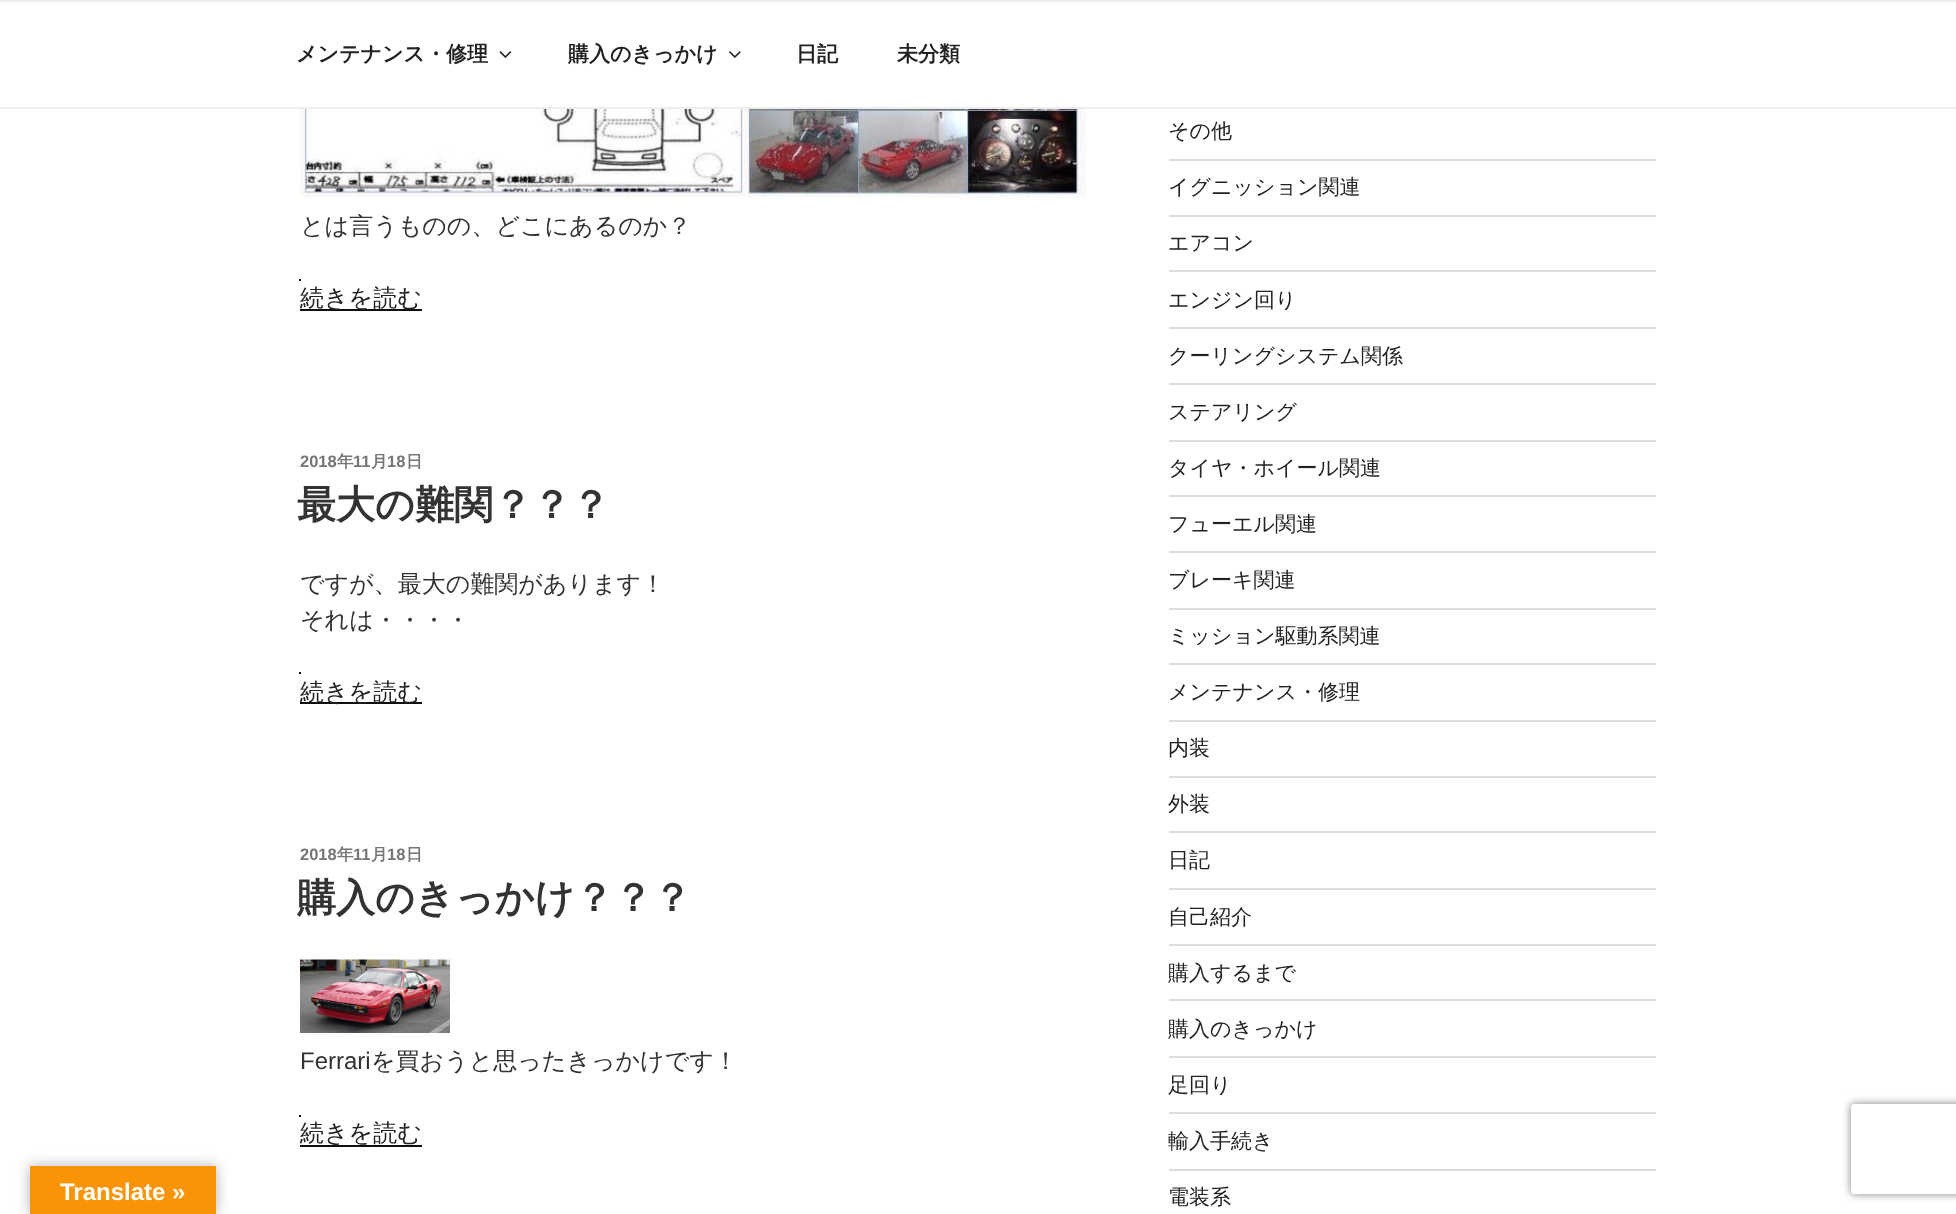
async function draw(canvas) {
  canvas.width = 1956
  canvas.height = 1214
  const ctx = canvas.getContext('2d')
  ctx.miterLimit = 4
  ctx.fontKerning = 'normal'
  async function loadImage(src) {
    const img = new Image()
    img.src = src
    await img.decode()
    return img
  }

  ctx.fillStyle = '#fff'
  ctx.fillRect(0, 0, 1956, 1214)
  ctx.fillStyle = '#0000004d'
  ctx.filter = 'blur(7px)'
  ctx.beginPath()
  ctx.rect(30, 1166, 186, 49)
  ctx.fill()
  ctx.filter = 'none'
  ctx.fillStyle = '#f89406'
  ctx.fillRect(30, 1166, 186, 48)
  ctx.font = 'bold 24px Liberation Sans'
  ctx.fillStyle = '#fff'
  ctx.fillText('Translate »', 60, 1200)
  ctx.fillStyle = '#eee'
  ctx.fillRect(0, 0, 1956, 2)
  ctx.fillRect(0, 107, 1956, 2)
  ctx.font = 'bold 21px WenQuanYi Zen Hei'
  ctx.fillStyle = '#222'
  ctx.fillText('メンテナンス・修理', 296, 61)
  ctx.drawImage(await loadImage('image0.png'), 499, 51, 13, 7)
  ctx.fillText('購入のきっかけ', 568, 61)
  ctx.drawImage(await loadImage('image1.png'), 729, 51, 12, 7)
  ctx.fillText('日記', 796, 61)
  ctx.fillText('未分類', 897, 61)
  ctx.drawImage(await loadImage('image2.png'), 300, 109, 786, 89)
  ctx.font = '500 24px WenQuanYi Zen Hei'
  ctx.fillStyle = '#333'
  ctx.fillText('とは言うものの、どこにあるのか？', 300, 234)
  ctx.fillStyle = '#0f0f0f'
  ctx.fillRect(300, 309, 122, 2)
  ctx.fillStyle = '#222'
  ctx.fillText('続きを読む', 300, 306)
  ctx.fillStyle = '#0f0f0f'
  ctx.fillRect(299, 279, 2, 2)
  ctx.font = 'bold 16.5px Liberation Sans'
  ctx.fillStyle = '#767676'
  ctx.fillText('2018', 300, 467)
  ctx.font = 'bold 16.5px WenQuanYi Zen Hei'
  ctx.fillText('年', 337, 467)
  ctx.font = 'bold 16.5px Liberation Sans'
  ctx.fillText('11', 353, 467)
  ctx.font = 'bold 16.5px WenQuanYi Zen Hei'
  ctx.fillText('月', 371, 467)
  ctx.font = 'bold 16.5px Liberation Sans'
  ctx.fillText('18', 387, 467)
  ctx.font = 'bold 16.5px WenQuanYi Zen Hei'
  ctx.fillText('日', 406, 467)
  ctx.font = 'bold 39px WenQuanYi Zen Hei'
  ctx.fillStyle = '#333'
  ctx.fillText('最大の難関？？？', 297, 518)
  ctx.font = '500 24px WenQuanYi Zen Hei'
  ctx.fillText('ですが、最大の難関があります！', 300, 592)
  ctx.fillText('それは・・・・', 300, 628)
  ctx.fillStyle = '#0f0f0f'
  ctx.fillRect(300, 702, 122, 2)
  ctx.fillStyle = '#222'
  ctx.fillText('続きを読む', 300, 700)
  ctx.fillStyle = '#0f0f0f'
  ctx.fillRect(299, 672, 2, 2)
  ctx.font = 'bold 16.5px Liberation Sans'
  ctx.fillStyle = '#767676'
  ctx.fillText('2018', 300, 860)
  ctx.font = 'bold 16.5px WenQuanYi Zen Hei'
  ctx.fillText('年', 337, 860)
  ctx.font = 'bold 16.5px Liberation Sans'
  ctx.fillText('11', 353, 860)
  ctx.font = 'bold 16.5px WenQuanYi Zen Hei'
  ctx.fillText('月', 371, 860)
  ctx.font = 'bold 16.5px Liberation Sans'
  ctx.fillText('18', 387, 860)
  ctx.font = 'bold 16.5px WenQuanYi Zen Hei'
  ctx.fillText('日', 406, 860)
  ctx.font = 'bold 39px WenQuanYi Zen Hei'
  ctx.fillStyle = '#333'
  ctx.fillText('購入のきっかけ？？？', 297, 911)
  ctx.drawImage(await loadImage('image3.png'), 300, 959, 150, 74)
  ctx.font = '24px Liberation Sans'
  ctx.fillText('Ferrari', 300, 1069)
  ctx.font = '500 24px WenQuanYi Zen Hei'
  ctx.fillText('を買おうと思ったきっかけです！', 371, 1069)
  ctx.fillStyle = '#0f0f0f'
  ctx.fillRect(300, 1145, 122, 2)
  ctx.fillStyle = '#222'
  ctx.fillText('続きを読む', 300, 1141)
  ctx.fillStyle = '#0f0f0f'
  ctx.fillRect(299, 1115, 2, 2)
  ctx.fillStyle = '#ddd'
  ctx.fillRect(1169, 159, 487, 2)
  ctx.font = '500 21px WenQuanYi Zen Hei'
  ctx.fillStyle = '#222'
  ctx.fillText('その他', 1168, 138)
  ctx.fillStyle = '#ddd'
  ctx.fillRect(1169, 215, 487, 2)
  ctx.fillStyle = '#222'
  ctx.fillText('イグニッション関連', 1168, 194)
  ctx.fillStyle = '#ddd'
  ctx.fillRect(1169, 270, 487, 2)
  ctx.fillStyle = '#222'
  ctx.fillText('エアコン', 1168, 250)
  ctx.fillStyle = '#ddd'
  ctx.fillRect(1169, 327, 487, 2)
  ctx.fillStyle = '#222'
  ctx.fillText('エンジン回り', 1168, 307)
  ctx.fillStyle = '#ddd'
  ctx.fillRect(1169, 383, 487, 2)
  ctx.fillStyle = '#222'
  ctx.fillText('クーリングシステム関係', 1168, 363)
  ctx.fillStyle = '#ddd'
  ctx.fillRect(1169, 440, 487, 2)
  ctx.fillStyle = '#222'
  ctx.fillText('ステアリング', 1168, 419)
  ctx.fillStyle = '#ddd'
  ctx.fillRect(1169, 495, 487, 2)
  ctx.fillStyle = '#222'
  ctx.fillText('タイヤ・ホイール関連', 1168, 475)
  ctx.fillStyle = '#ddd'
  ctx.fillRect(1169, 551, 487, 2)
  ctx.fillStyle = '#222'
  ctx.fillText('フューエル関連', 1168, 531)
  ctx.fillStyle = '#ddd'
  ctx.fillRect(1169, 608, 487, 2)
  ctx.fillStyle = '#222'
  ctx.fillText('ブレーキ関連', 1168, 587)
  ctx.fillStyle = '#ddd'
  ctx.fillRect(1169, 663, 487, 2)
  ctx.fillStyle = '#222'
  ctx.fillText('ミッション駆動系関連', 1168, 643)
  ctx.fillStyle = '#ddd'
  ctx.fillRect(1169, 720, 487, 2)
  ctx.fillStyle = '#222'
  ctx.fillText('メンテナンス・修理', 1168, 699)
  ctx.fillStyle = '#ddd'
  ctx.fillRect(1169, 776, 487, 2)
  ctx.fillStyle = '#222'
  ctx.fillText('内装', 1168, 755)
  ctx.fillStyle = '#ddd'
  ctx.fillRect(1169, 831, 487, 2)
  ctx.fillStyle = '#222'
  ctx.fillText('外装', 1168, 811)
  ctx.fillStyle = '#ddd'
  ctx.fillRect(1169, 888, 487, 2)
  ctx.fillStyle = '#222'
  ctx.fillText('日記', 1168, 867)
  ctx.fillStyle = '#ddd'
  ctx.fillRect(1169, 944, 487, 2)
  ctx.fillStyle = '#222'
  ctx.fillText('自己紹介', 1168, 924)
  ctx.fillStyle = '#ddd'
  ctx.fillRect(1169, 999, 487, 2)
  ctx.fillStyle = '#222'
  ctx.fillText('購入するまで', 1168, 980)
  ctx.fillStyle = '#ddd'
  ctx.fillRect(1169, 1056, 487, 2)
  ctx.fillStyle = '#222'
  ctx.fillText('購入のきっかけ', 1168, 1036)
  ctx.fillStyle = '#ddd'
  ctx.fillRect(1169, 1112, 487, 2)
  ctx.fillStyle = '#222'
  ctx.fillText('足回り', 1168, 1092)
  ctx.fillStyle = '#ddd'
  ctx.fillRect(1169, 1169, 487, 2)
  ctx.fillStyle = '#222'
  ctx.fillText('輸入手続き', 1168, 1148)
  ctx.fillText('電装系', 1168, 1204)
  ctx.save()
  ctx.beginPath()
  ctx.moveTo(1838, 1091)
  ctx.lineTo(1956, 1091)
  ctx.lineTo(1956, 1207)
  ctx.lineTo(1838, 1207)
  ctx.closePath()
  ctx.moveTo(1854, 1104)
  ctx.lineTo(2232, 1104)
  ctx.bezierCurveTo(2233.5, 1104, 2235, 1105.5, 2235, 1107)
  ctx.lineTo(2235, 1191)
  ctx.bezierCurveTo(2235, 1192.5, 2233.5, 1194, 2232, 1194)
  ctx.lineTo(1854, 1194)
  ctx.bezierCurveTo(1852.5, 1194, 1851, 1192.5, 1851, 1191)
  ctx.lineTo(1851, 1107)
  ctx.bezierCurveTo(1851, 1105.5, 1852.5, 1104, 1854, 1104)
  ctx.closePath()
  ctx.clip('evenodd')
  ctx.fillStyle = '#808080'
  ctx.filter = 'blur(4px)'
  ctx.beginPath()
  ctx.roundRect(1851, 1104, 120, 90, 3)
  ctx.fill()
  ctx.filter = 'none'
  ctx.restore()
}

draw(document.querySelector('canvas'))
